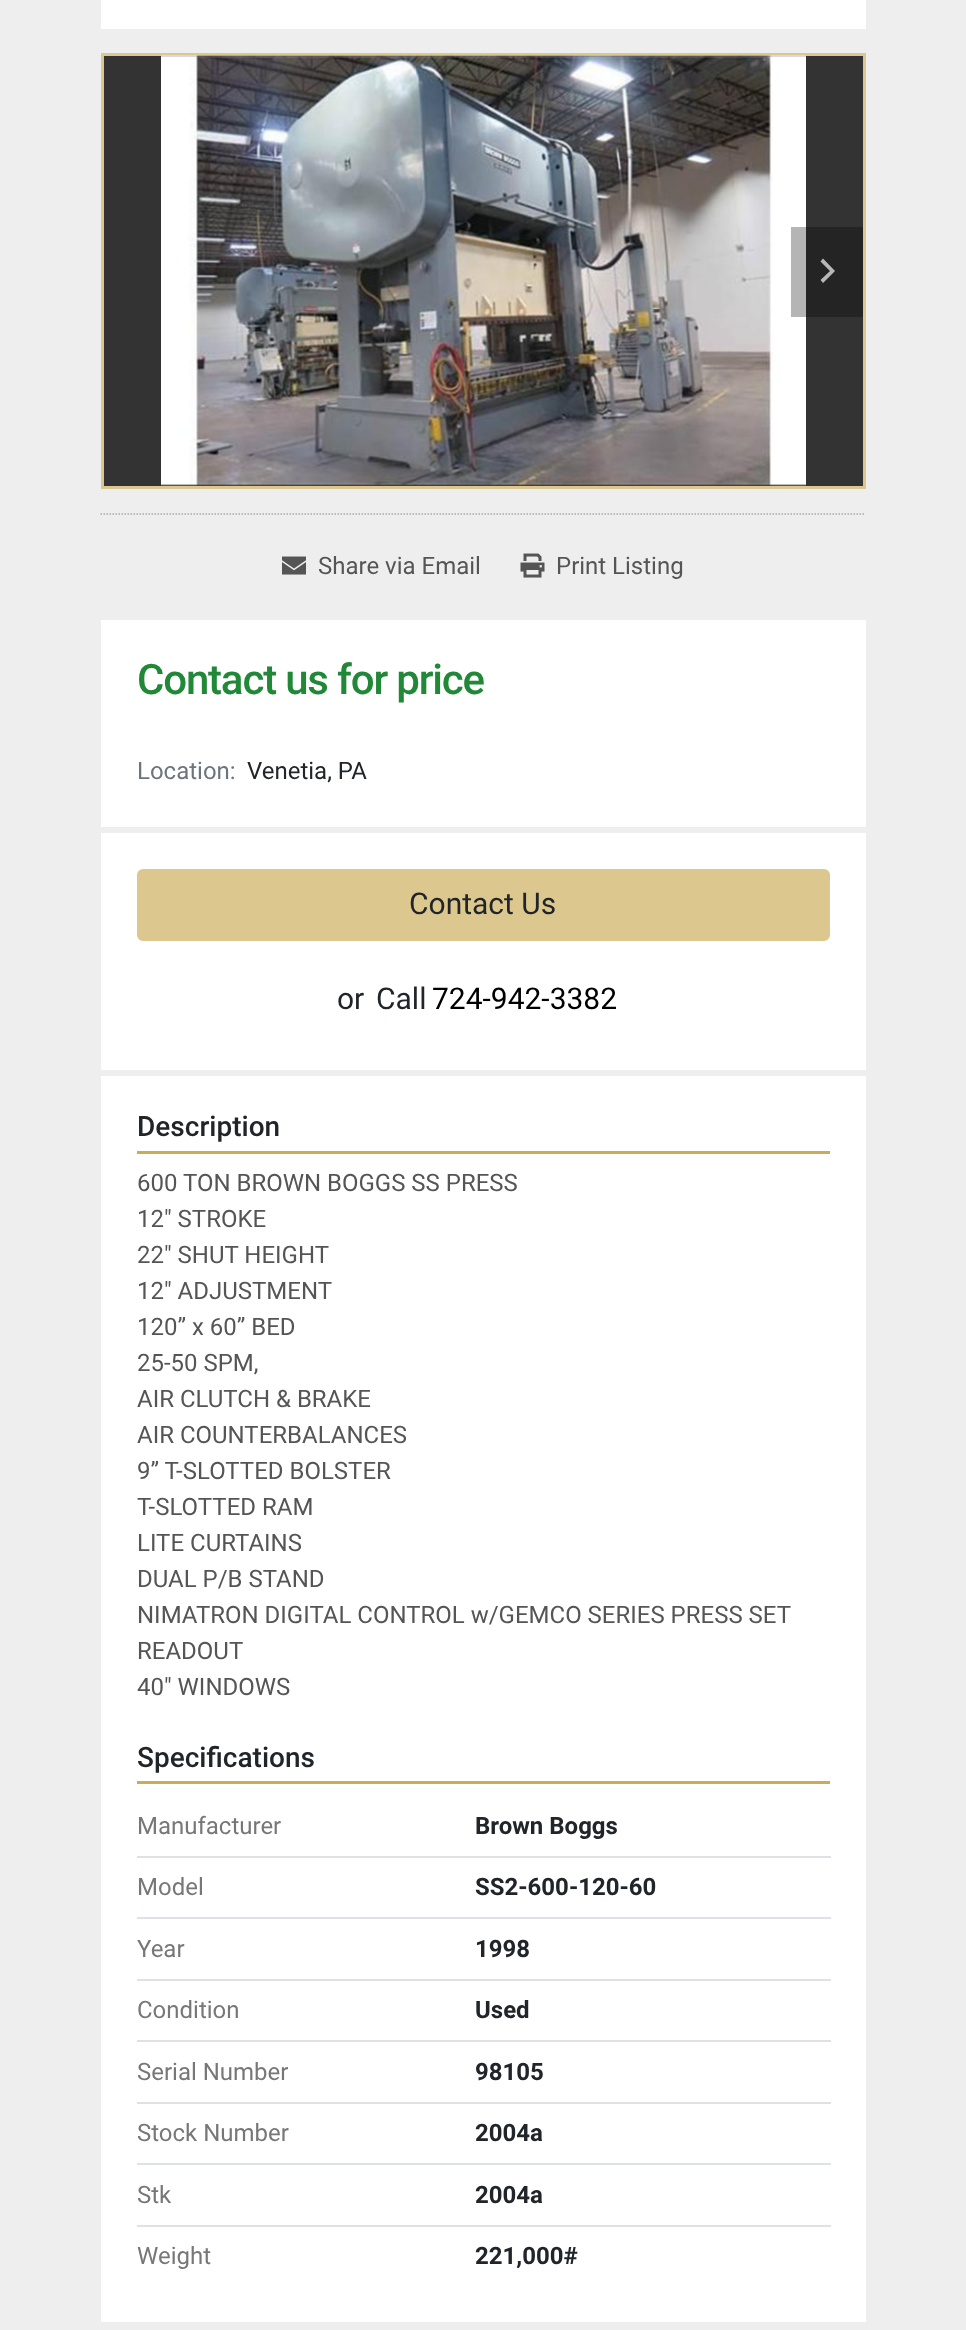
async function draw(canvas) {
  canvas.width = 966
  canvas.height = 2330
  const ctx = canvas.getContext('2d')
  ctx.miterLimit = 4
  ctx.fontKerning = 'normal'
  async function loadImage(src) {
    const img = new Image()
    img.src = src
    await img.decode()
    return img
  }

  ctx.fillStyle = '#eee'
  ctx.fillRect(0, 0, 966, 2330)
  ctx.fillStyle = '#fff'
  ctx.fillRect(101, 0, 765, 29)
  ctx.fillStyle = '#333'
  ctx.beginPath()
  ctx.rect(102.5, 54.5, 762, 433)
  ctx.fill()
  ctx.strokeStyle = '#dcc88e'
  ctx.lineWidth = 3
  ctx.stroke()
  ctx.drawImage(await loadImage('image0.png'), 161, 55, 645, 431)
  ctx.fillStyle = '#0000004a'
  ctx.fillRect(791, 227, 72, 90)
  ctx.fillStyle = '#b8b8b8'
  ctx.beginPath()
  ctx.moveTo(835, 271)
  ctx.lineTo(823, 283)
  ctx.lineTo(820.5, 280)
  ctx.lineTo(830, 271)
  ctx.lineTo(820.5, 261.5)
  ctx.lineTo(823, 258.5)
  ctx.closePath()
  ctx.fill()
  ctx.beginPath()
  ctx.moveTo(100.5, 514)
  ctx.lineTo(865.5, 514)
  ctx.strokeStyle = '#aaa'
  ctx.lineWidth = 1.5
  ctx.setLineDash([1.5, 1.5])
  ctx.stroke()
  ctx.drawImage(await loadImage('image1.png'), 282, 556, 24, 19)
  ctx.font = '24px Roboto'
  ctx.fillStyle = '#555'
  ctx.fillText('Share via Email', 318, 574)
  ctx.drawImage(await loadImage('image2.png'), 520, 553, 25, 25)
  ctx.fillText('Print Listing', 556, 574)
  ctx.fillStyle = '#fff'
  ctx.fillRect(101, 620, 765, 1702)
  ctx.letterSpacing = '-1.2px'
  ctx.font = '500 42px Roboto'
  ctx.fillStyle = '#218838'
  ctx.fillText('Contact us for price', 137, 694)
  ctx.letterSpacing = '0px'
  ctx.font = '24px Roboto'
  ctx.fillStyle = '#6c757d'
  ctx.fillText('Location:', 137, 779)
  ctx.fillStyle = '#212529'
  ctx.fillText('Venetia, PA', 247, 779)
  ctx.fillStyle = '#eee'
  ctx.fillRect(101, 827, 765, 6)
  ctx.fillRect(101, 1070, 765, 6)
  ctx.fillStyle = '#dcc88e'
  ctx.beginPath()
  ctx.roundRect(138, 870, 691, 70, 5)
  ctx.fill()
  ctx.strokeStyle = '#dcc88e'
  ctx.lineWidth = 2
  ctx.setLineDash([])
  ctx.stroke()
  ctx.font = '30px Roboto'
  ctx.fillStyle = '#212529'
  ctx.fillText('Contact Us', 409, 914)
  ctx.fillText('or', 337, 1009)
  ctx.fillText('Call', 376, 1009)
  ctx.fillStyle = '#000'
  ctx.fillText('724-942-3382', 432, 1009)
  ctx.fillStyle = '#caac54'
  ctx.fillRect(137, 1151, 693, 3)
  ctx.font = '500 28px Roboto'
  ctx.fillStyle = '#212529'
  ctx.fillText('Description', 137, 1136)
  ctx.font = '24px Roboto'
  ctx.fillStyle = '#555'
  ctx.fillText('600 TON BROWN BOGGS SS PRESS', 137, 1191)
  ctx.fillText('12" STROKE', 137, 1227)
  ctx.fillText('22" SHUT HEIGHT', 137, 1263)
  ctx.fillText('12" ADJUSTMENT', 137, 1299)
  ctx.fillText('120” x 60” BED', 137, 1335)
  ctx.fillText('25-50 SPM,', 137, 1371)
  ctx.fillText('AIR CLUTCH & BRAKE', 137, 1407)
  ctx.fillText('AIR COUNTERBALANCES', 137, 1443)
  ctx.fillText('9” T-SLOTTED BOLSTER', 137, 1479)
  ctx.fillText('T-SLOTTED RAM', 137, 1515)
  ctx.fillText('LITE CURTAINS', 137, 1551)
  ctx.fillText('DUAL P/B STAND', 137, 1587)
  ctx.fillText('NIMATRON DIGITAL CONTROL w/GEMCO SERIES PRESS SET', 137, 1623)
  ctx.fillText('READOUT', 137, 1659)
  ctx.fillText('40" WINDOWS', 137, 1695)
  ctx.fillStyle = '#caac54'
  ctx.fillRect(137, 1781, 693, 3)
  ctx.font = '500 28px Roboto'
  ctx.fillStyle = '#212529'
  ctx.fillText('Specifications', 137, 1767)
  ctx.fillStyle = '#dee2e6'
  ctx.fillRect(137, 1856, 694, 2)
  ctx.font = '24px Roboto'
  ctx.fillStyle = '#777'
  ctx.fillText('Manufacturer', 137, 1834)
  ctx.font = 'bold 24px Roboto'
  ctx.fillStyle = '#212529'
  ctx.fillText('Brown Boggs', 475, 1834)
  ctx.fillStyle = '#dee2e6'
  ctx.fillRect(137, 1917, 694, 2)
  ctx.font = '24px Roboto'
  ctx.fillStyle = '#777'
  ctx.fillText('Model', 137, 1895)
  ctx.font = 'bold 24px Roboto'
  ctx.fillStyle = '#212529'
  ctx.fillText('SS2-600-120-60', 475, 1895)
  ctx.fillStyle = '#dee2e6'
  ctx.fillRect(137, 1979, 694, 2)
  ctx.font = '24px Roboto'
  ctx.fillStyle = '#777'
  ctx.fillText('Year', 137, 1957)
  ctx.font = 'bold 24px Roboto'
  ctx.fillStyle = '#212529'
  ctx.fillText('1998', 475, 1957)
  ctx.fillStyle = '#dee2e6'
  ctx.fillRect(137, 2040, 694, 2)
  ctx.font = '24px Roboto'
  ctx.fillStyle = '#777'
  ctx.fillText('Condition', 137, 2018)
  ctx.font = 'bold 24px Roboto'
  ctx.fillStyle = '#212529'
  ctx.fillText('Used', 475, 2018)
  ctx.fillStyle = '#dee2e6'
  ctx.fillRect(137, 2102, 694, 2)
  ctx.font = '24px Roboto'
  ctx.fillStyle = '#777'
  ctx.fillText('Serial Number', 137, 2080)
  ctx.font = 'bold 24px Roboto'
  ctx.fillStyle = '#212529'
  ctx.fillText('98105', 475, 2080)
  ctx.fillStyle = '#dee2e6'
  ctx.fillRect(137, 2163, 694, 2)
  ctx.font = '24px Roboto'
  ctx.fillStyle = '#777'
  ctx.fillText('Stock Number', 137, 2141)
  ctx.font = 'bold 24px Roboto'
  ctx.fillStyle = '#212529'
  ctx.fillText('2004a', 475, 2141)
  ctx.fillStyle = '#dee2e6'
  ctx.fillRect(137, 2225, 694, 2)
  ctx.font = '24px Roboto'
  ctx.fillStyle = '#777'
  ctx.fillText('Stk', 137, 2203)
  ctx.font = 'bold 24px Roboto'
  ctx.fillStyle = '#212529'
  ctx.fillText('2004a', 475, 2203)
  ctx.font = '24px Roboto'
  ctx.fillStyle = '#777'
  ctx.fillText('Weight', 137, 2264)
  ctx.font = 'bold 24px Roboto'
  ctx.fillStyle = '#212529'
  ctx.fillText('221,000#', 475, 2264)
}

draw(document.querySelector('canvas'))
